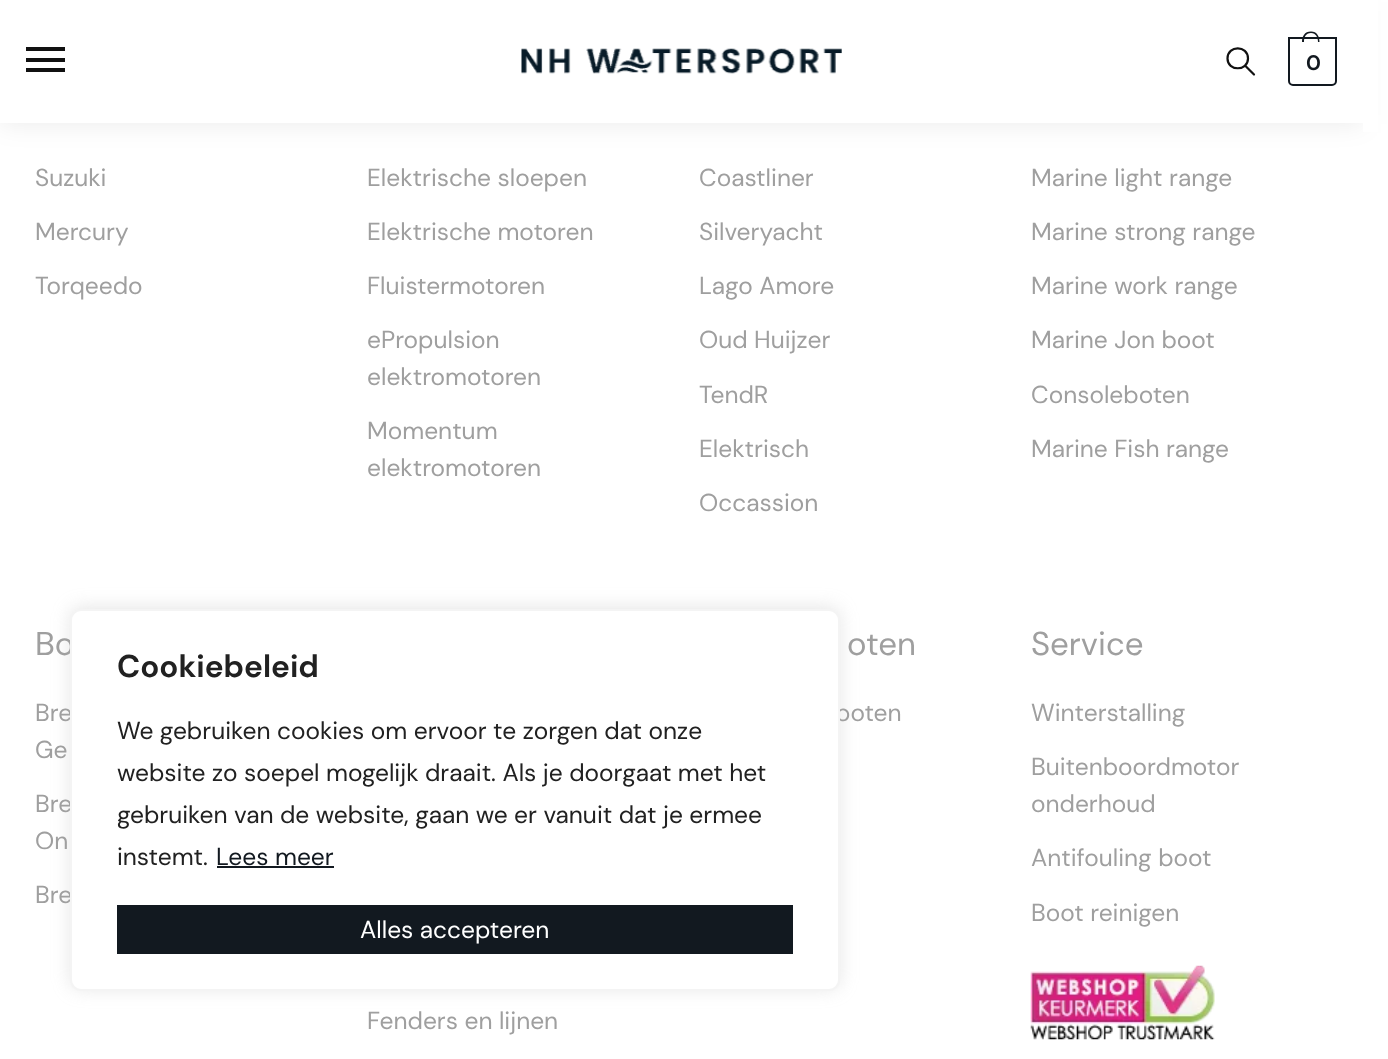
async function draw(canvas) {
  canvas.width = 1388
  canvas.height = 1059
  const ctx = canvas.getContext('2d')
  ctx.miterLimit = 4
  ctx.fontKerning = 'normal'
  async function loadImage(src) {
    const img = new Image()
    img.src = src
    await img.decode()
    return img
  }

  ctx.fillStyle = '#fff'
  ctx.fillRect(0, 0, 1388, 1059)
  ctx.save()
  ctx.beginPath()
  ctx.moveTo(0, 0)
  ctx.lineTo(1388, 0)
  ctx.lineTo(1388, 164)
  ctx.lineTo(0, 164)
  ctx.closePath()
  ctx.moveTo(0, 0)
  ctx.lineTo(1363, 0)
  ctx.lineTo(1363, 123)
  ctx.lineTo(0, 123)
  ctx.closePath()
  ctx.clip('evenodd')
  ctx.fillStyle = '#00000014'
  ctx.filter = 'blur(13px)'
  ctx.beginPath()
  ctx.rect(0, 2, 1363, 122)
  ctx.fill()
  ctx.filter = 'none'
  ctx.restore()
  ctx.fillStyle = '#111'
  ctx.fillRect(26, 47, 39, 4)
  ctx.fillRect(26, 58, 39, 4)
  ctx.fillRect(26, 68, 39, 4)
  ctx.drawImage(await loadImage('image0.png'), 521, 48, 321, 26)
  ctx.beginPath()
  ctx.moveTo(1254, 74.5)
  ctx.lineTo(1245, 65.5)
  ctx.moveTo(1248, 58.5)
  ctx.bezierCurveTo(1248, 71.5, 1227.5, 71.5, 1227.5, 58.5)
  ctx.bezierCurveTo(1227.5, 45, 1248, 45, 1248, 58.5)
  ctx.closePath()
  ctx.strokeStyle = '#111'
  ctx.lineWidth = 2.2
  ctx.lineCap = 'round'
  ctx.lineJoin = 'round'
  ctx.stroke()
  ctx.beginPath()
  ctx.roundRect(1289, 38, 47, 47, [0, 0, 4, 4])
  ctx.strokeStyle = '#121920'
  ctx.lineWidth = 2
  ctx.lineJoin = 'miter'
  ctx.stroke()
  ctx.fillStyle = '#121920'
  ctx.beginPath()
  ctx.moveTo(1311, 31.5)
  ctx.bezierCurveTo(1317, 31.5, 1319.5, 36.5, 1319.5, 42)
  ctx.lineTo(1302, 42)
  ctx.bezierCurveTo(1302, 36.5, 1304.5, 31.5, 1311, 31.5)
  ctx.closePath()
  ctx.moveTo(1311, 33)
  ctx.bezierCurveTo(1316, 33, 1318, 37.5, 1318, 42)
  ctx.lineTo(1304, 42)
  ctx.bezierCurveTo(1304, 37.5, 1305.5, 33, 1311, 33)
  ctx.closePath()
  ctx.fill('evenodd')
  ctx.letterSpacing = '-1px'
  ctx.font = 'bold 21px DM Sans'
  ctx.fillText('0', 1306, 70)
  ctx.fillStyle = '#fff'
  ctx.fillRect(1363, 0, 15, 132)
  ctx.letterSpacing = '0px'
  ctx.font = '24.5px DM Sans'
  ctx.fillStyle = '#9f9f9f'
  ctx.fillText('Suzuki', 35, 186)
  ctx.fillText('Mercury', 35, 240)
  ctx.fillText('Torqeedo', 35, 294)
  ctx.fillText('Elektrische sloepen', 367, 186)
  ctx.fillText('Elektrische motoren', 367, 240)
  ctx.fillText('Fluistermotoren', 367, 294)
  ctx.fillText('ePropulsion', 367, 348)
  ctx.fillText('elektromotoren', 367, 385)
  ctx.fillText('Momentum', 367, 439)
  ctx.fillText('elektromotoren', 367, 476)
  ctx.fillText('Coastliner', 699, 186)
  ctx.fillText('Silveryacht', 699, 240)
  ctx.fillText('Lago Amore', 699, 294)
  ctx.fillText('Oud Huijzer', 699, 348)
  ctx.fillText('TendR', 699, 403)
  ctx.fillText('Elektrisch', 699, 457)
  ctx.fillText('Occassion', 699, 511)
  ctx.fillText('Marine light range', 1031, 186)
  ctx.fillText('Marine strong range', 1031, 240)
  ctx.fillText('Marine work range', 1031, 294)
  ctx.fillText('Marine Jon boot', 1031, 348)
  ctx.fillText('Consoleboten', 1031, 403)
  ctx.fillText('Marine Fish range', 1031, 457)
  ctx.font = '33px DM Sans'
  ctx.fillText('Bo', 35, 655)
  ctx.font = '24.5px DM Sans'
  ctx.fillText('Bre', 35, 721)
  ctx.fillText('Ge', 35, 758)
  ctx.fillText('Bre', 35, 812)
  ctx.fillText('On', 35, 849)
  ctx.fillText('Bre', 35, 903)
  ctx.font = '33px DM Sans'
  ctx.fillText('oten', 847, 655)
  ctx.font = '24.5px DM Sans'
  ctx.fillText('boten', 835, 721)
  ctx.font = '33px DM Sans'
  ctx.fillText('Service', 1031, 655)
  ctx.font = '24.5px DM Sans'
  ctx.fillText('Winterstalling', 1031, 721)
  ctx.fillText('Buitenboordmotor', 1031, 775)
  ctx.fillText('onderhoud', 1031, 812)
  ctx.fillText('Antifouling boot', 1031, 866)
  ctx.fillText('Boot reinigen', 1031, 921)
  ctx.drawImage(await loadImage('image1.png'), 1030, 965, 185, 75)
  ctx.fillText('Fenders en lijnen', 367, 1029)
  ctx.fillStyle = '#acabab4d'
  ctx.filter = 'blur(9px)'
  ctx.beginPath()
  ctx.roundRect(70, 607, 770, 382, 11)
  ctx.fill()
  ctx.filter = 'none'
  ctx.fillStyle = '#fff'
  ctx.beginPath()
  ctx.roundRect(71, 610, 768, 380, 10)
  ctx.fill()
  ctx.strokeStyle = '#f4f4f4'
  ctx.stroke()
  ctx.font = 'bold 31.5px DM Sans'
  ctx.fillStyle = '#212121'
  ctx.fillText('Cookiebeleid', 117, 677)
  ctx.font = '24.5px DM Sans'
  ctx.fillText('We gebruiken cookies om ervoor te zorgen dat onze', 117, 739)
  ctx.fillText('website zo soepel mogelijk draait. Als je doorgaat met het', 117, 781)
  ctx.fillText('gebruiken van de website, gaan we er vanuit dat je ermee', 117, 823)
  ctx.fillText('instemt.', 117, 865)
  ctx.fillStyle = '#121920'
  ctx.fillText('Lees meer', 216, 865)
  ctx.fillRect(217, 866, 117, 2)
  ctx.fillRect(117, 905, 676, 49)
  ctx.fillStyle = '#fff'
  ctx.fillText('Alles accepteren', 360, 938)
}

draw(document.querySelector('canvas'))
